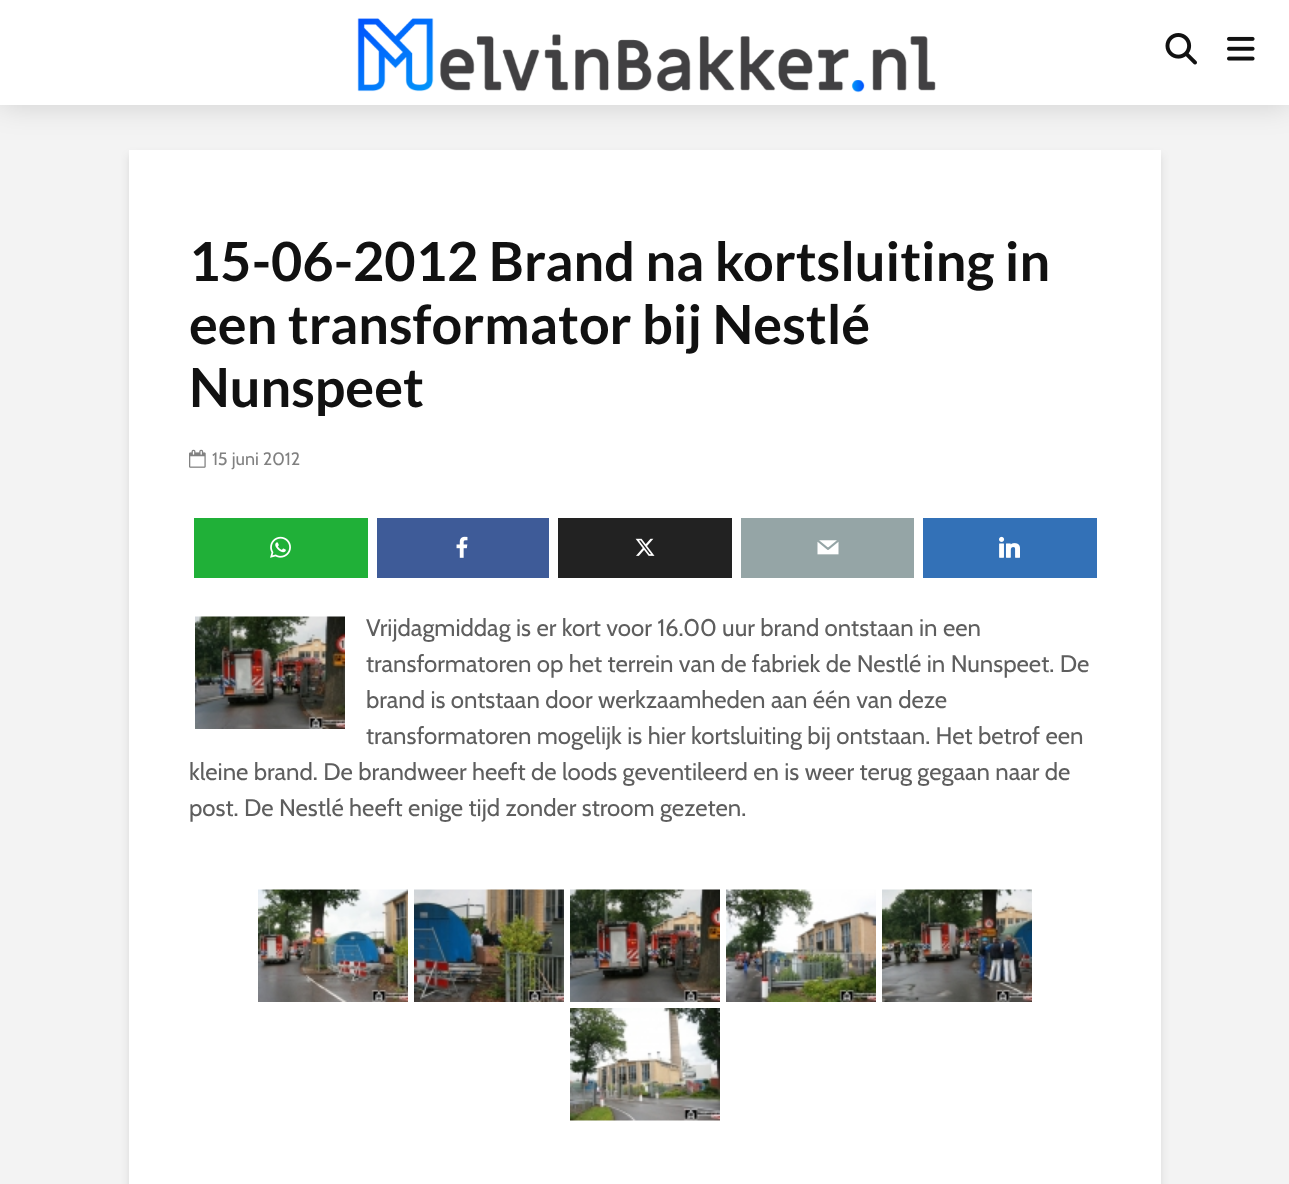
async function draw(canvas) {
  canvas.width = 1289
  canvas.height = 1184
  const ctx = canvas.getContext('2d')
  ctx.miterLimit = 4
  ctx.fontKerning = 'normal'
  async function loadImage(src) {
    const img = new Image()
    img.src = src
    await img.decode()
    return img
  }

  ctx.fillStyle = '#f3f3f3'
  ctx.fillRect(0, 0, 1289, 1184)
  ctx.fillStyle = '#0001011a'
  ctx.filter = 'blur(4px)'
  ctx.beginPath()
  ctx.rect(129, 155, 1032, 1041)
  ctx.fill()
  ctx.filter = 'none'
  ctx.fillStyle = '#fff'
  ctx.fillRect(129, 150, 1032, 1034)
  ctx.fillStyle = '#00000026'
  ctx.filter = 'blur(15px)'
  ctx.beginPath()
  ctx.rect(0, 0, 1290, 105)
  ctx.fill()
  ctx.filter = 'none'
  ctx.fillStyle = '#fff'
  ctx.fillRect(0, 0, 1289, 105)
  ctx.drawImage(await loadImage('image0.png'), 357, 18, 579, 75)
  ctx.drawImage(await loadImage('image1.png'), 1165, 33, 32, 32)
  ctx.drawImage(await loadImage('image2.png'), 1227, 36, 28, 25)
  ctx.font = 'bold 54px Lato'
  ctx.fillStyle = '#111'
  ctx.fillText('15-06-2012 Brand na kortsluiting in', 189, 281)
  ctx.fillText('een transformator bij Nestlé', 189, 344)
  ctx.fillText('Nunspeet', 189, 407)
  ctx.drawImage(await loadImage('image3.png'), 189, 449, 17, 19)
  ctx.font = '18px Cabin'
  ctx.fillStyle = '#818181'
  ctx.fillText('15 juni 2012', 212, 465)
  ctx.fillStyle = '#20b038'
  ctx.fillRect(194, 518, 174, 60)
  ctx.drawImage(await loadImage('image4.png'), 270, 536, 21, 22)
  ctx.fillStyle = '#3e5b98'
  ctx.fillRect(377, 518, 172, 60)
  ctx.drawImage(await loadImage('image5.png'), 456, 536, 12, 22)
  ctx.fillStyle = '#222'
  ctx.fillRect(558, 518, 174, 60)
  ctx.drawImage(await loadImage('image6.png'), 635, 538, 20, 18)
  ctx.fillStyle = '#95a5a6'
  ctx.fillRect(741, 518, 173, 60)
  ctx.drawImage(await loadImage('image7.png'), 817, 540, 22, 15)
  ctx.fillStyle = '#3371b7'
  ctx.fillRect(923, 518, 174, 60)
  ctx.drawImage(await loadImage('image8.png'), 999, 536, 21, 22)
  ctx.drawImage(await loadImage('image9.png'), 195, 616, 150, 113)
  ctx.font = '24px Cabin'
  ctx.fillStyle = '#5e5e5e'
  ctx.fillText('Vrijdagmiddag is er kort voor 16.00 uur brand ontstaan in een', 366, 636)
  ctx.fillText('transformatoren op het terrein van de fabriek de Nestlé in Nunspeet. De', 366, 672)
  ctx.fillText('brand is ontstaan door werkzaamheden aan één van deze', 366, 708)
  ctx.fillText('transformatoren mogelijk is hier kortsluiting bij ontstaan. Het betrof een', 366, 744)
  ctx.fillText('kleine brand. De brandweer heeft de loods geventileerd en is weer terug gegaan naar de', 189, 780)
  ctx.fillText('post. De Nestlé heeft enige tijd zonder stroom gezeten.', 189, 816)
  ctx.drawImage(await loadImage('image10.png'), 258, 889, 150, 113)
  ctx.drawImage(await loadImage('image11.png'), 414, 889, 150, 113)
  ctx.drawImage(await loadImage('image12.png'), 570, 889, 150, 113)
  ctx.drawImage(await loadImage('image13.png'), 726, 889, 150, 113)
  ctx.drawImage(await loadImage('image14.png'), 882, 889, 150, 113)
  ctx.drawImage(await loadImage('image15.png'), 570, 1008, 150, 113)
}

draw(document.querySelector('canvas'))
